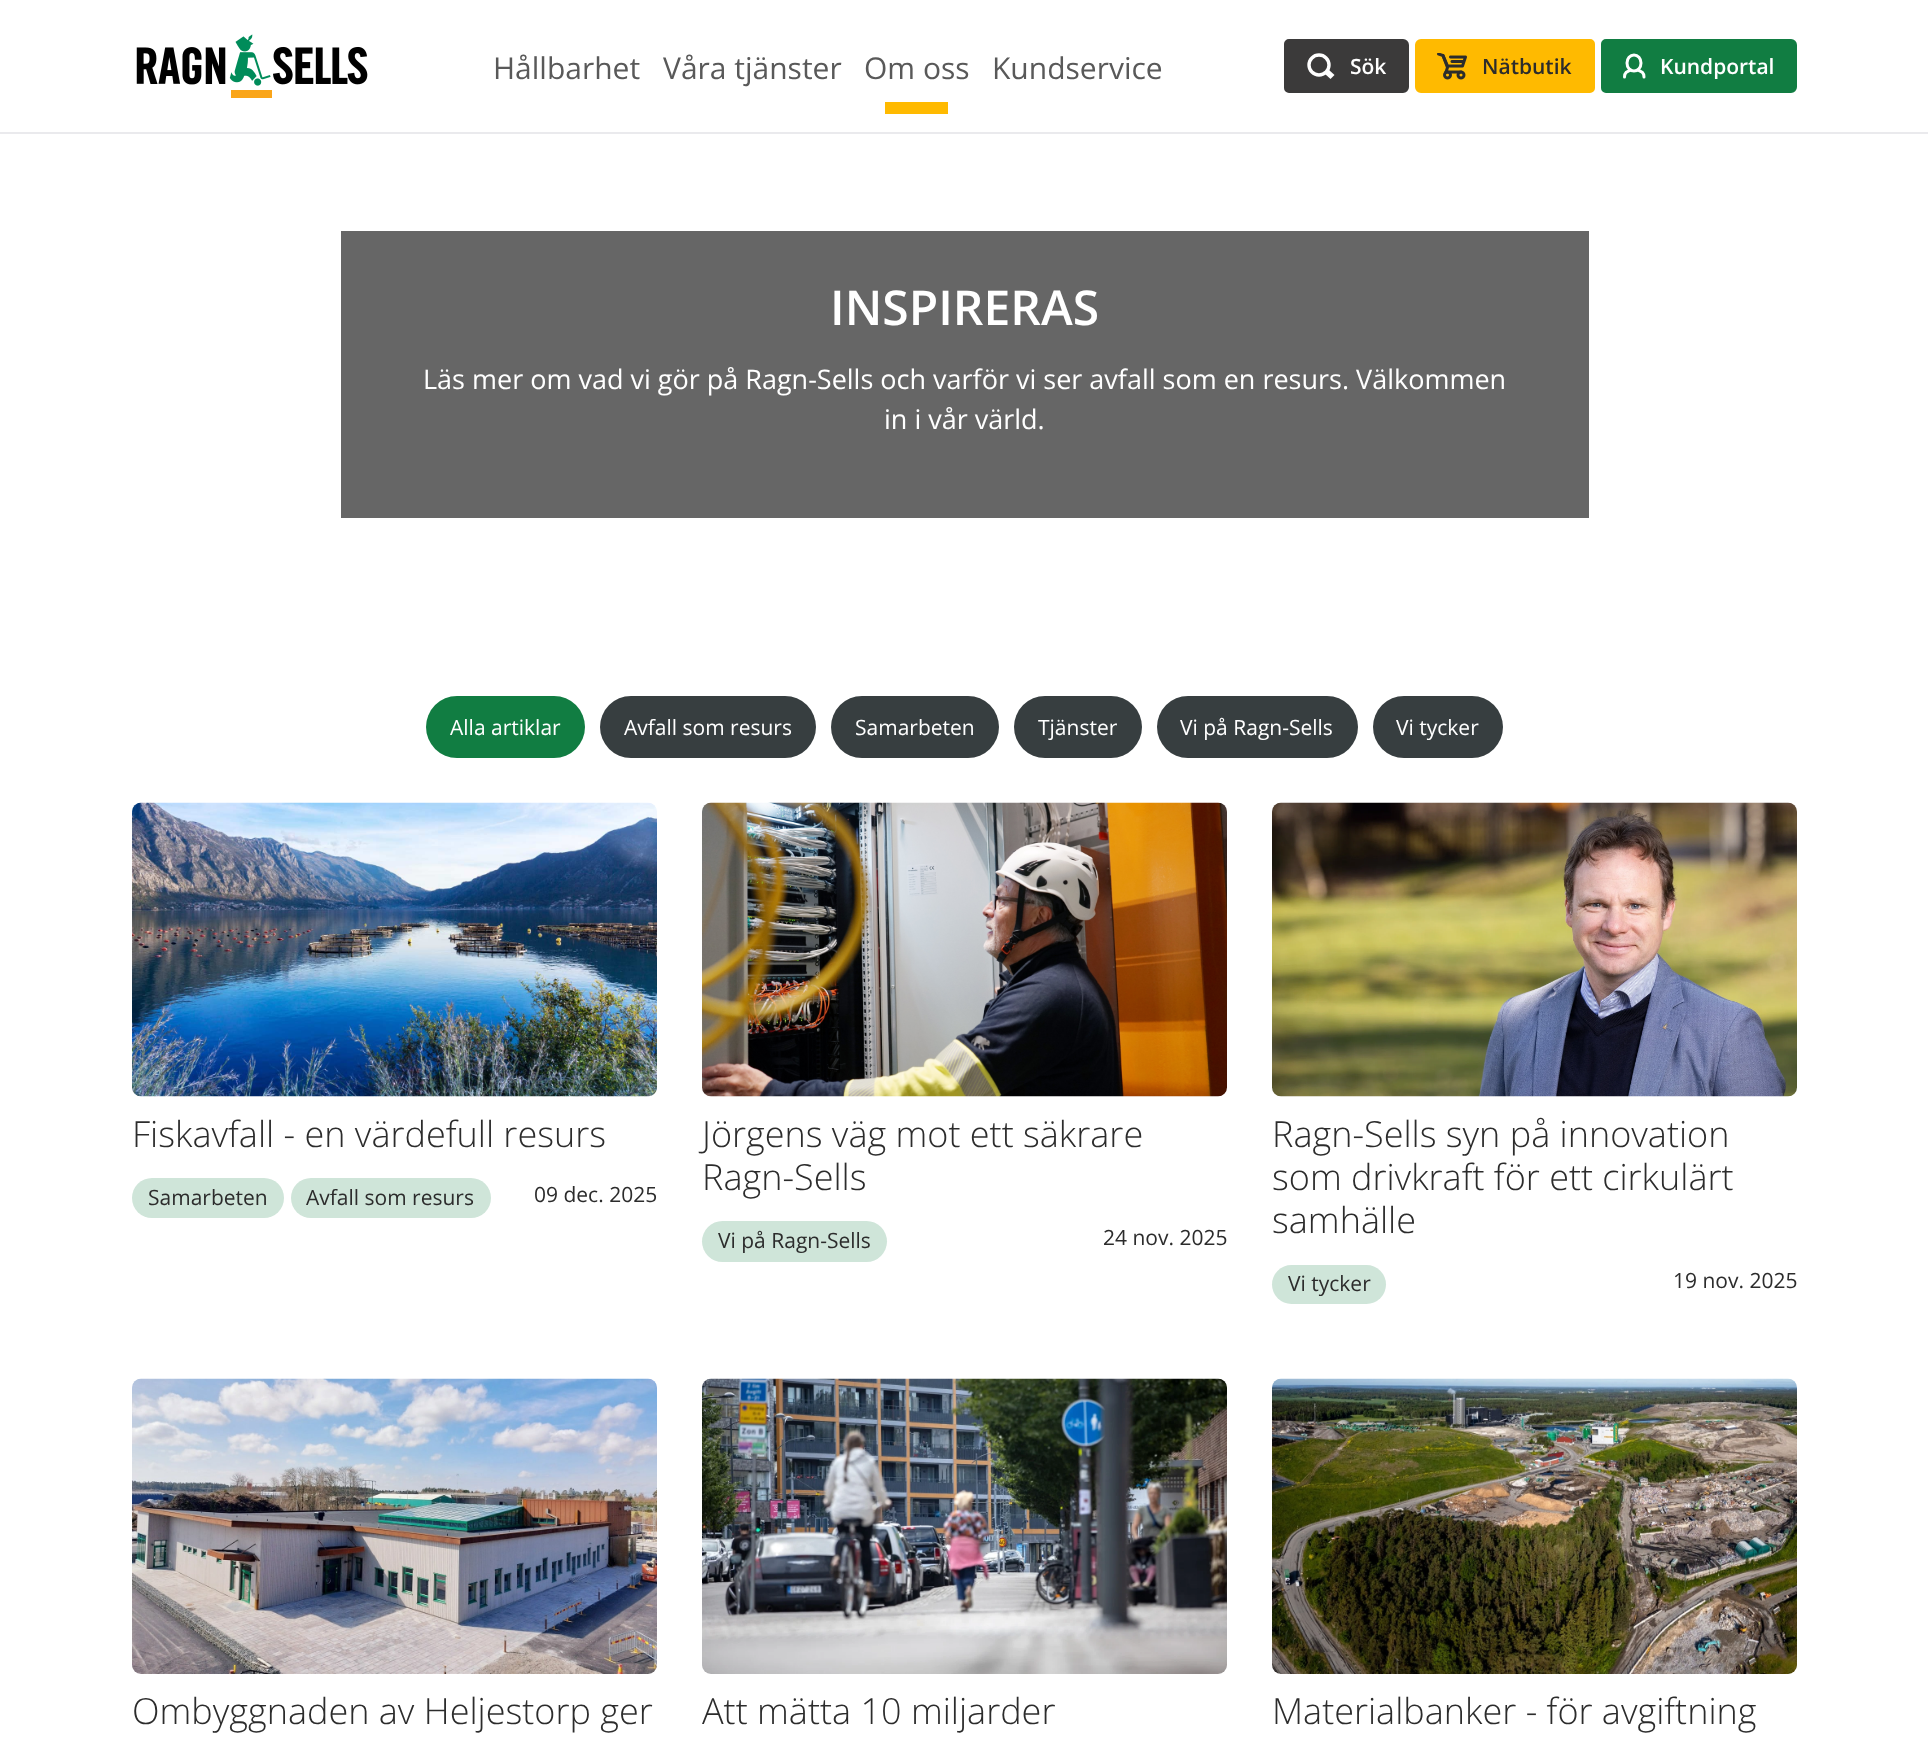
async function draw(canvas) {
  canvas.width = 1928
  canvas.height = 1748
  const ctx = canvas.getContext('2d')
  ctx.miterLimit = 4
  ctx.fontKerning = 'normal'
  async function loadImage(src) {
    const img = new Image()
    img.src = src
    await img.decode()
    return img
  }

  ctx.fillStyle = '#fff'
  ctx.fillRect(0, 0, 1928, 1748)
  ctx.fillStyle = '#eaeaed'
  ctx.fillRect(0, 132, 1928, 2)
  ctx.drawImage(await loadImage('image0.png'), 136, 34, 232, 64)
  ctx.font = '30px Open Sans'
  ctx.fillStyle = '#595959'
  ctx.fillText('Hållbarhet', 493, 79)
  ctx.fillText('Våra tjänster', 663, 79)
  ctx.fillText('Om oss', 864, 79)
  ctx.fillStyle = '#ffba00'
  ctx.fillRect(885, 102, 63, 12)
  ctx.fillStyle = '#595959'
  ctx.fillText('Kundservice', 992, 79)
  ctx.fillStyle = '#3b3a3a'
  ctx.beginPath()
  ctx.roundRect(1285, 40, 123, 52, [4, 5, 5, 4])
  ctx.fill()
  ctx.strokeStyle = '#3b3a3a'
  ctx.lineWidth = 2
  ctx.stroke()
  ctx.beginPath()
  ctx.arc(1319, 65, 10, 0, 2 * Math.PI)
  ctx.strokeStyle = '#fff'
  ctx.lineWidth = 3.4
  ctx.stroke()
  ctx.fillStyle = '#fff'
  ctx.beginPath()
  ctx.moveTo(1324.5, 73.5)
  ctx.lineTo(1328.5, 69.5)
  ctx.lineTo(1334.5, 75)
  ctx.lineTo(1330.5, 79)
  ctx.closePath()
  ctx.fill('evenodd')
  ctx.font = '600 21px Open Sans'
  ctx.fillText('Sök', 1350, 74)
  ctx.fillStyle = '#ffba00'
  ctx.beginPath()
  ctx.roundRect(1416, 40, 178, 52, [5, 4, 4, 5])
  ctx.fill()
  ctx.strokeStyle = '#ffba00'
  ctx.lineWidth = 2
  ctx.stroke()
  ctx.drawImage(await loadImage('image1.png'), 1437, 53, 30, 27)
  ctx.fillStyle = '#2c2c2c'
  ctx.fillText('Nätbutik', 1482, 74)
  ctx.fillStyle = '#117d42'
  ctx.beginPath()
  ctx.roundRect(1602, 40, 194, 52, [4, 5, 5, 4])
  ctx.fill()
  ctx.strokeStyle = '#117d42'
  ctx.stroke()
  ctx.beginPath()
  ctx.ellipse(1634, 63, 7, 8, 0, 0, 2 * Math.PI)
  ctx.strokeStyle = '#fff'
  ctx.lineWidth = 3
  ctx.stroke()
  ctx.beginPath()
  ctx.moveTo(1624.5, 77)
  ctx.bezierCurveTo(1624.5, 72.5, 1627, 71.5, 1630.5, 70)
  ctx.moveTo(1644, 77)
  ctx.bezierCurveTo(1644, 72.5, 1641.5, 71.5, 1638, 70)
  ctx.lineCap = 'round'
  ctx.stroke()
  ctx.fillStyle = '#fff'
  ctx.fillText('Kundportal', 1660, 74)
  ctx.fillStyle = '#666'
  ctx.fillRect(341, 231, 1248, 287)
  ctx.font = '600 48px Open Sans'
  ctx.fillStyle = '#fff'
  ctx.fillText('INSPIRERAS', 830, 325)
  ctx.font = '27px Open Sans'
  ctx.fillText('Läs mer om vad vi gör på Ragn-Sells och varför vi ser avfall som en resurs. Välkommen', 423, 389)
  ctx.fillText('in i vår värld.', 884, 429)
  ctx.fillStyle = '#117d42'
  ctx.beginPath()
  ctx.roundRect(426, 696, 159, 62, 31)
  ctx.fill()
  ctx.font = '21px Open Sans'
  ctx.fillStyle = '#fff'
  ctx.fillText('Alla artiklar', 450, 735)
  ctx.fillStyle = '#373e40'
  ctx.beginPath()
  ctx.roundRect(600, 696, 216, 62, 31)
  ctx.fill()
  ctx.fillStyle = '#fff'
  ctx.fillText('Avfall som resurs', 624, 735)
  ctx.fillStyle = '#373e40'
  ctx.beginPath()
  ctx.roundRect(831, 696, 168, 62, 31)
  ctx.fill()
  ctx.fillStyle = '#fff'
  ctx.fillText('Samarbeten', 855, 735)
  ctx.fillStyle = '#373e40'
  ctx.beginPath()
  ctx.roundRect(1014, 696, 128, 62, 31)
  ctx.fill()
  ctx.fillStyle = '#fff'
  ctx.fillText('Tjänster', 1038, 735)
  ctx.fillStyle = '#373e40'
  ctx.beginPath()
  ctx.roundRect(1157, 696, 201, 62, 31)
  ctx.fill()
  ctx.fillStyle = '#fff'
  ctx.fillText('Vi på Ragn-Sells', 1180, 735)
  ctx.fillStyle = '#373e40'
  ctx.beginPath()
  ctx.roundRect(1373, 696, 130, 62, 31)
  ctx.fill()
  ctx.fillStyle = '#fff'
  ctx.fillText('Vi tycker', 1396, 735)
  ctx.drawImage(await loadImage('image2.png'), 132, 802, 525, 295)
  ctx.font = '300 36px Open Sans'
  ctx.fillStyle = '#2c2c2c'
  ctx.fillText('Fiskavfall - en värdefull resurs', 132, 1147)
  ctx.fillStyle = '#cfe5d9'
  ctx.beginPath()
  ctx.roundRect(132, 1178, 152, 40, 20)
  ctx.fill()
  ctx.font = '21px Open Sans'
  ctx.fillStyle = '#2c2c2c'
  ctx.fillText('Samarbeten', 148, 1205)
  ctx.fillStyle = '#cfe5d9'
  ctx.beginPath()
  ctx.roundRect(291, 1178, 200, 40, 20)
  ctx.fill()
  ctx.fillStyle = '#2c2c2c'
  ctx.fillText('Avfall som resurs', 306, 1205)
  ctx.fillText('09 dec. 2025', 534, 1202)
  ctx.drawImage(await loadImage('image3.png'), 702, 802, 525, 295)
  ctx.font = '300 36px Open Sans'
  ctx.fillText('Jörgens väg mot ett säkrare', 702, 1147)
  ctx.fillText('Ragn-Sells', 702, 1190)
  ctx.fillStyle = '#cfe5d9'
  ctx.beginPath()
  ctx.roundRect(702, 1221, 185, 41, 20.5)
  ctx.fill()
  ctx.font = '21px Open Sans'
  ctx.fillStyle = '#2c2c2c'
  ctx.fillText('Vi på Ragn-Sells', 718, 1248)
  ctx.fillText('24 nov. 2025', 1103, 1245)
  ctx.drawImage(await loadImage('image4.png'), 1272, 802, 525, 295)
  ctx.font = '300 36px Open Sans'
  ctx.fillText('Ragn-Sells syn på innovation', 1272, 1147)
  ctx.fillText('som drivkraft för ett cirkulärt', 1272, 1190)
  ctx.fillText('samhälle', 1272, 1233)
  ctx.fillStyle = '#cfe5d9'
  ctx.beginPath()
  ctx.roundRect(1272, 1265, 114, 39, 19.5)
  ctx.fill()
  ctx.font = '21px Open Sans'
  ctx.fillStyle = '#2c2c2c'
  ctx.fillText('Vi tycker', 1288, 1291)
  ctx.fillText('19 nov. 2025', 1673, 1288)
  ctx.drawImage(await loadImage('image5.png'), 132, 1378, 525, 296)
  ctx.font = '300 36px Open Sans'
  ctx.fillText('Ombyggnaden av Heljestorp ger', 132, 1724)
  ctx.drawImage(await loadImage('image6.png'), 702, 1378, 525, 296)
  ctx.fillText('Att mätta 10 miljarder', 702, 1724)
  ctx.drawImage(await loadImage('image7.png'), 1272, 1378, 525, 296)
  ctx.fillText('Materialbanker - för avgiftning', 1272, 1724)
}

draw(document.querySelector('canvas'))
